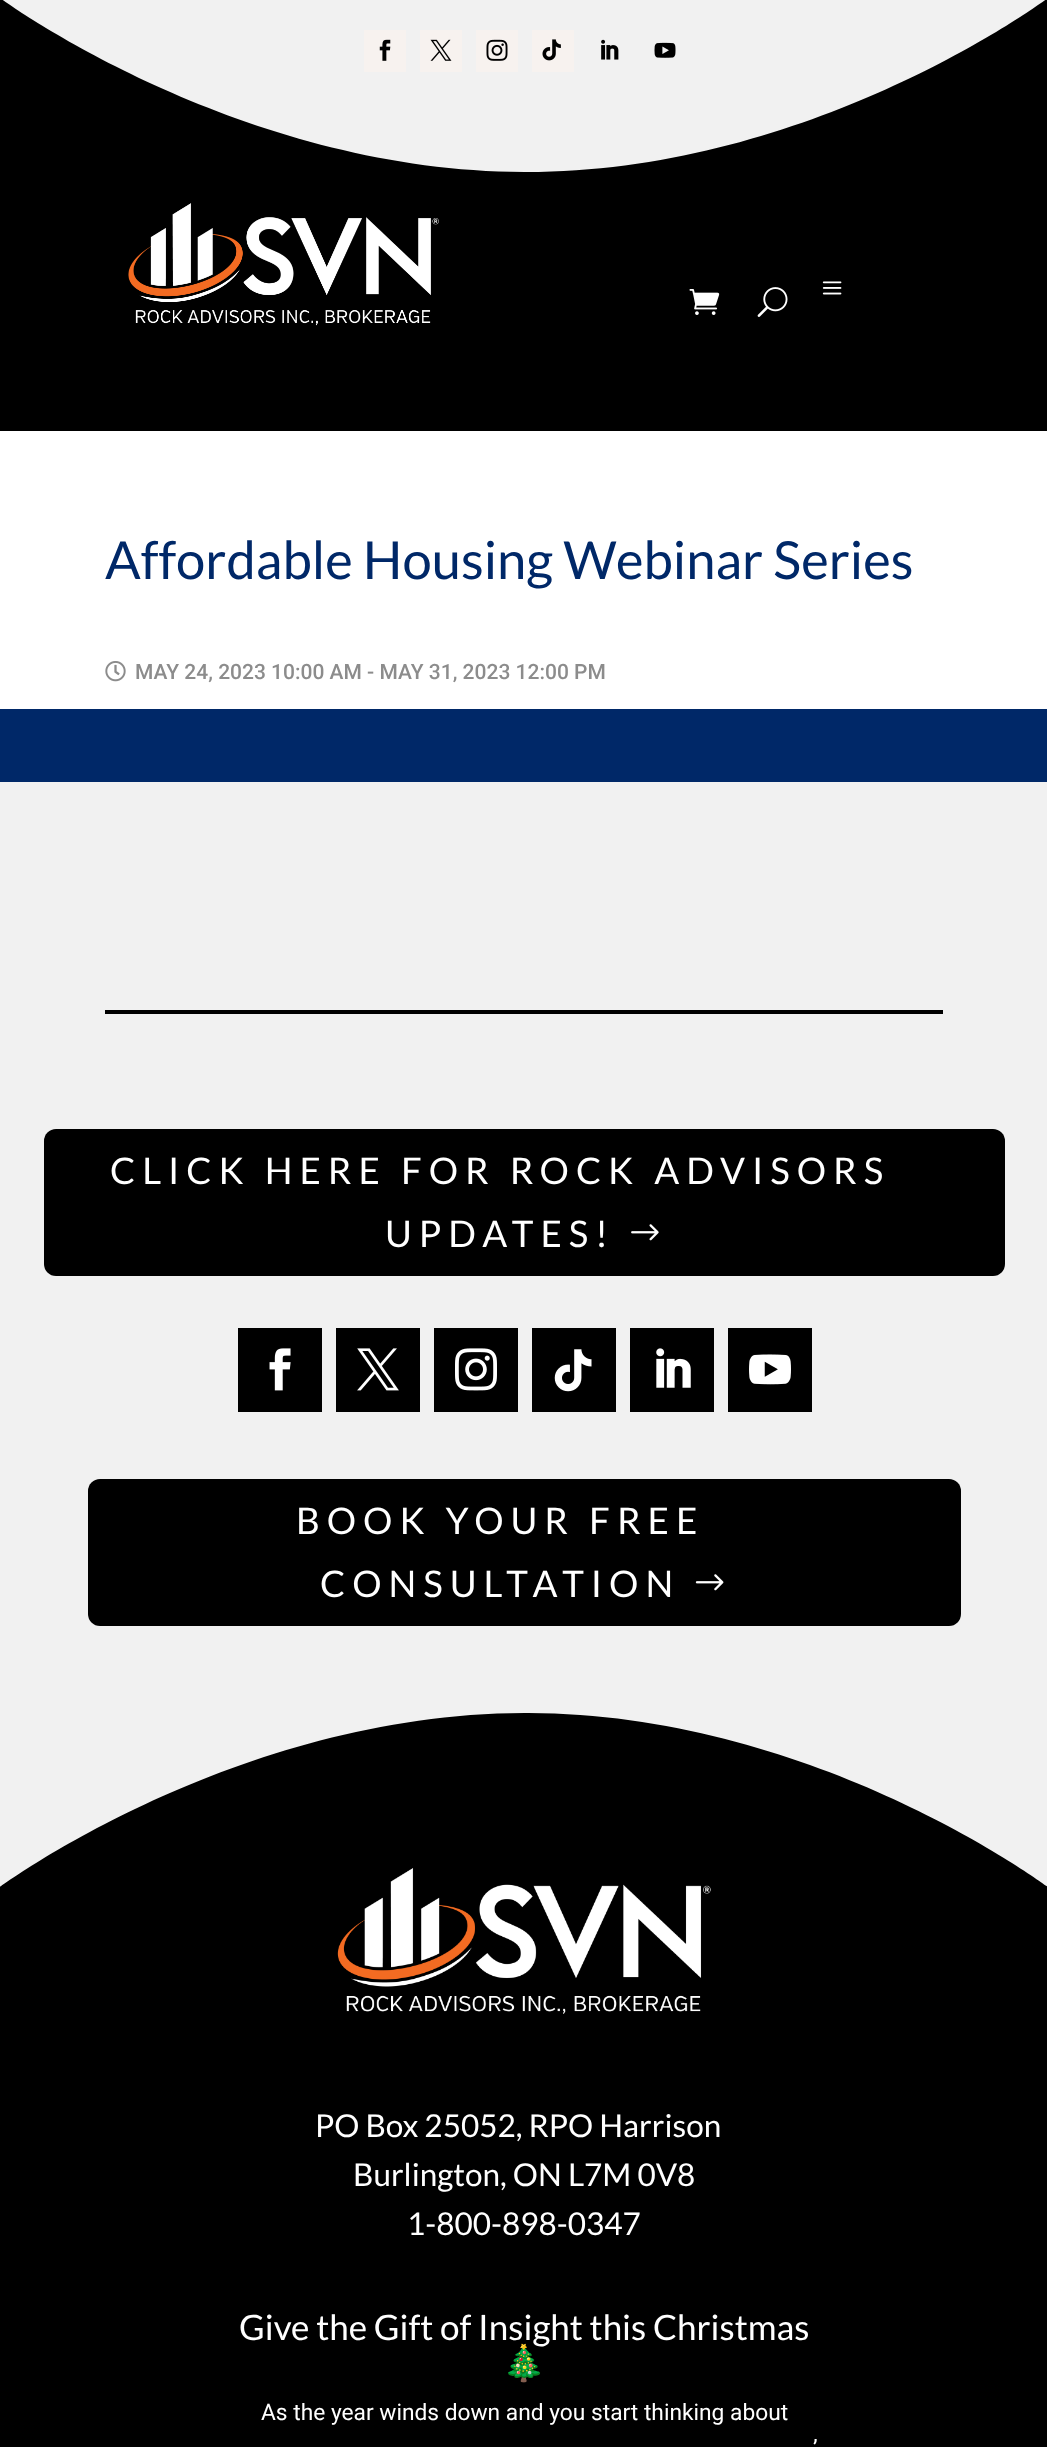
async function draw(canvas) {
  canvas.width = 1047
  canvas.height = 2447
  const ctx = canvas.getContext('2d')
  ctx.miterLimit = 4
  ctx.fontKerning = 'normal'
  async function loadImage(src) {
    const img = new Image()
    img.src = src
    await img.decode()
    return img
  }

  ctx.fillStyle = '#002868'
  ctx.fillRect(0, 0, 1047, 2447)
  ctx.fillStyle = '#f1f1f1'
  ctx.fillRect(2, 0, 1044, 172)
  ctx.fillStyle = '#000'
  ctx.beginPath()
  ctx.moveTo(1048, 173)
  ctx.lineTo(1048, -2)
  ctx.bezierCurveTo(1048, -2, 814, 173, 524, 172)
  ctx.bezierCurveTo(235, 171, 0, -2, 0, -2)
  ctx.lineTo(0, 173)
  ctx.closePath()
  ctx.fill()
  ctx.fillStyle = '#f7f2ef'
  ctx.fillRect(364, 30, 42, 42)
  ctx.drawImage(await loadImage('image0.png'), 379, 39, 12, 22)
  ctx.fillRect(420, 30, 42, 42)
  ctx.drawImage(await loadImage('image1.png'), 430, 39, 22, 22)
  ctx.fillRect(476, 30, 42, 42)
  ctx.drawImage(await loadImage('image2.png'), 486, 39, 22, 22)
  ctx.fillRect(532, 30, 42, 42)
  ctx.drawImage(await loadImage('image3.png'), 542, 39, 19, 22)
  ctx.drawImage(await loadImage('image4.png'), 601, 39, 18, 21)
  ctx.drawImage(await loadImage('image5.png'), 654, 42, 22, 16)
  ctx.fillStyle = '#000'
  ctx.fillRect(0, 173, 1047, 258)
  ctx.drawImage(await loadImage('image6.png'), 128, 203, 311, 123)
  ctx.drawImage(await loadImage('image7.png'), 689, 289, 31, 26)
  ctx.drawImage(await loadImage('image8.png'), 757, 287, 31, 30)
  ctx.drawImage(await loadImage('image9.png'), 822, 281, 20, 14)
  ctx.fillStyle = '#fff'
  ctx.fillRect(0, 431, 1047, 278)
  ctx.font = '52.5px Lato'
  ctx.fillStyle = '#002868'
  ctx.fillText('Affordable Housing Webinar Series', 105, 579)
  ctx.drawImage(await loadImage('image10.png'), 105, 661, 21, 21)
  ctx.font = '500 21px Roboto'
  ctx.fillStyle = '#8c8c8c'
  ctx.fillText('MAY 24, 2023 10:00 AM - MAY 31, 2023 12:00 PM', 135, 679)
  ctx.fillStyle = '#f1f1f1'
  ctx.fillRect(0, 782, 1047, 931)
  ctx.fillStyle = '#000'
  ctx.fillRect(105, 1010, 838, 4)
  ctx.beginPath()
  ctx.roundRect(44, 1129, 961, 147, 12)
  ctx.fill()
  ctx.letterSpacing = '7px'
  ctx.font = '36.75px Lato'
  ctx.fillStyle = '#fff'
  ctx.fillText('CLICK HERE FOR ROCK ADVISORS', 110, 1184)
  ctx.fillText('UPDATES!', 385, 1247)
  ctx.drawImage(await loadImage('image11.png'), 631, 1224, 28, 17)
  ctx.fillStyle = '#000'
  ctx.fillRect(238, 1328, 84, 84)
  ctx.drawImage(await loadImage('image12.png'), 269, 1348, 22, 43)
  ctx.fillRect(336, 1328, 84, 84)
  ctx.drawImage(await loadImage('image13.png'), 357, 1348, 42, 43)
  ctx.fillRect(434, 1328, 84, 84)
  ctx.drawImage(await loadImage('image14.png'), 455, 1348, 42, 43)
  ctx.fillRect(532, 1328, 84, 84)
  ctx.drawImage(await loadImage('image15.png'), 554, 1349, 38, 43)
  ctx.fillRect(630, 1328, 84, 84)
  ctx.drawImage(await loadImage('image16.png'), 656, 1348, 35, 40)
  ctx.fillRect(728, 1328, 84, 84)
  ctx.drawImage(await loadImage('image17.png'), 749, 1354, 42, 31)
  ctx.beginPath()
  ctx.roundRect(88, 1479, 873, 147, 12)
  ctx.fill()
  ctx.fillStyle = '#fff'
  ctx.fillText('BOOK YOUR FREE', 296, 1534)
  ctx.fillText('CONSULTATION', 320, 1597)
  ctx.drawImage(await loadImage('image18.png'), 695, 1574, 29, 17)
  ctx.fillStyle = '#000'
  ctx.fillRect(0, 1713, 1047, 734)
  ctx.save()
  ctx.beginPath()
  ctx.rect(0, 1713, 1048, 175)
  ctx.clip()
  ctx.fillStyle = '#f1f1f1'
  ctx.beginPath()
  ctx.moveTo(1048, 1712)
  ctx.lineTo(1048, 1887)
  ctx.bezierCurveTo(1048, 1887, 814, 1712, 524, 1713)
  ctx.bezierCurveTo(235, 1714, 0, 1887, 0, 1887)
  ctx.lineTo(0, 1712)
  ctx.closePath()
  ctx.fill()
  ctx.restore()
  ctx.drawImage(await loadImage('image19.png'), 337, 1868, 374, 146)
  ctx.letterSpacing = '0px'
  ctx.font = '31.5px Lato'
  ctx.fillStyle = '#fff'
  ctx.fillText('PO Box 25052, RPO Harrison', 315, 2137)
  ctx.fillText('Burlington, ON L7M 0V8', 353, 2186)
  ctx.fillText('1-800-898-0347', 407, 2235)
  ctx.font = '35px Lato'
  ctx.fillText('Give the Gift of Insight this Christmas', 239, 2340)
  ctx.font = '35px Noto Color Emoji'
  ctx.fillText('🎄', 502, 2375)
  ctx.font = '22.75px Roboto'
  ctx.fillText('As the year winds down and you start thinking about', 261, 2420)
  ctx.fillText('’', 813, 2456)
}

draw(document.querySelector('canvas'))
